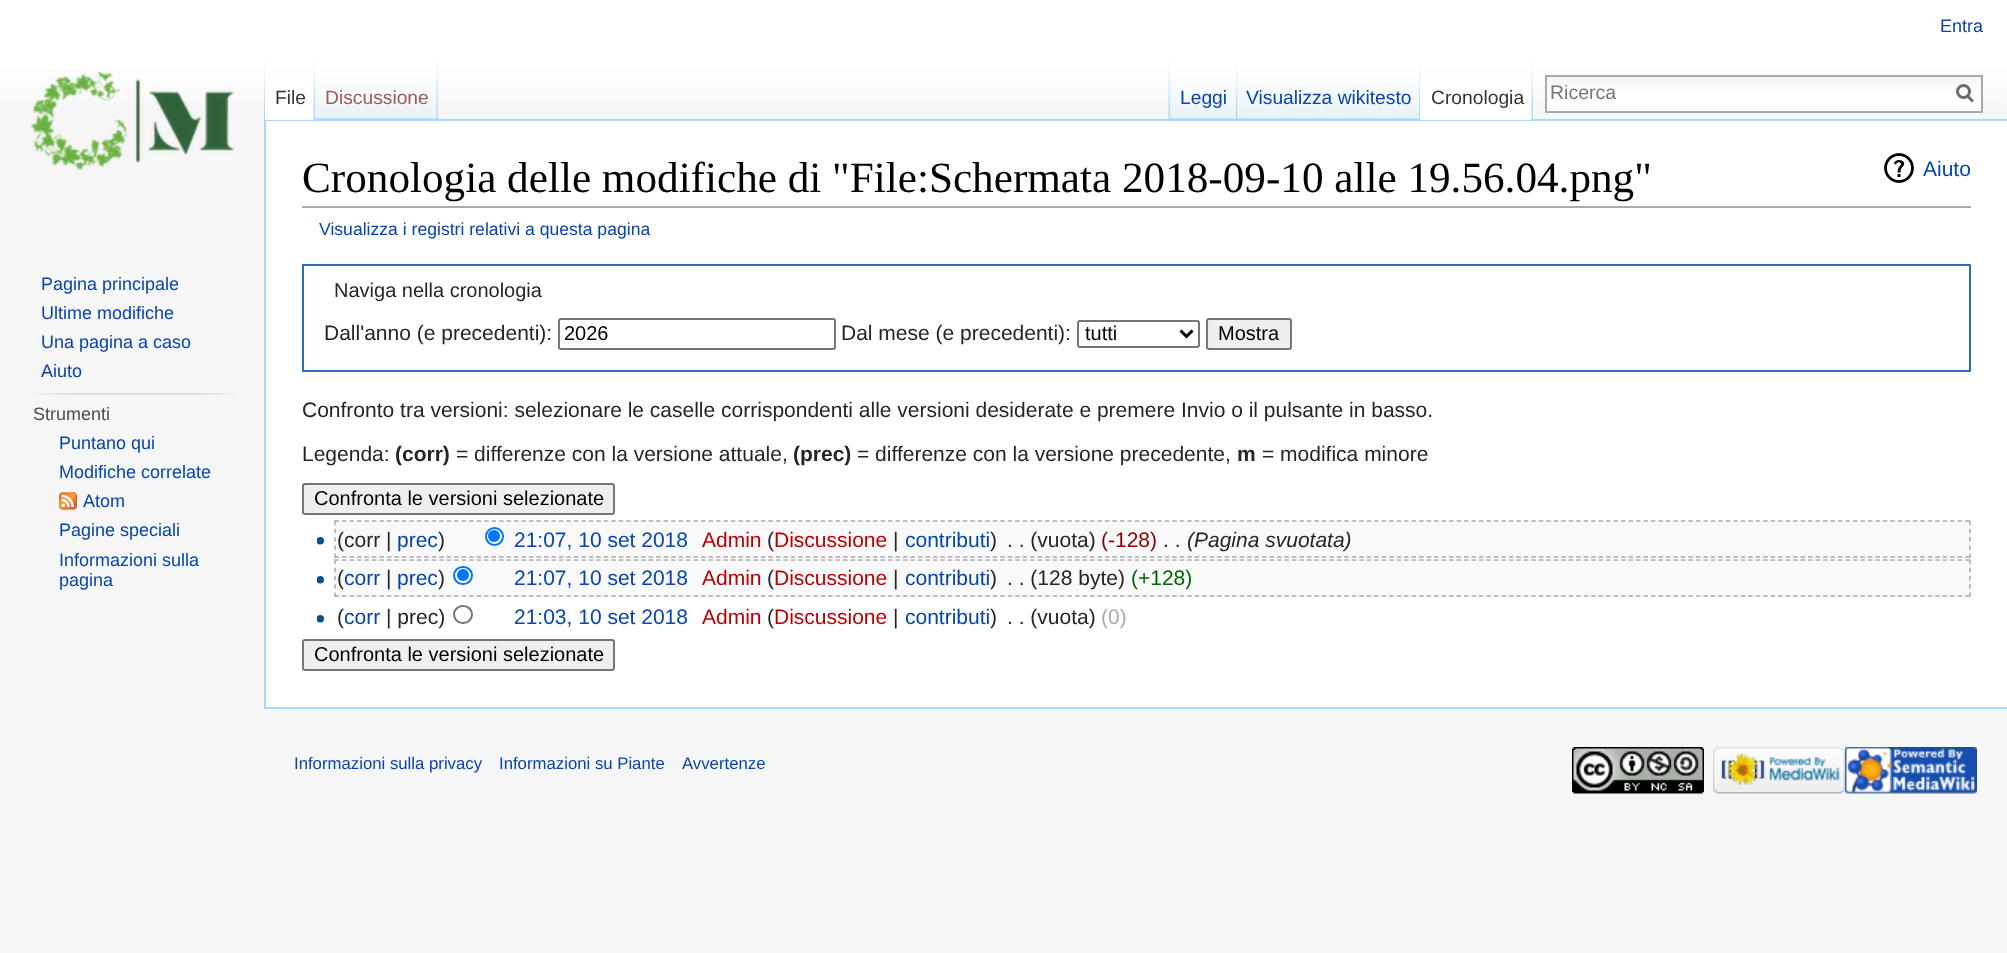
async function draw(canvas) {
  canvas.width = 2007
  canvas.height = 953
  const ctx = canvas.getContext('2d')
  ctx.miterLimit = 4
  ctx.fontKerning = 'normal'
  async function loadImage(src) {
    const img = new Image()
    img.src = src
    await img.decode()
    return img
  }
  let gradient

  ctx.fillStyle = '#f6f6f6'
  ctx.fillRect(0, 0, 2007, 953)
  gradient = ctx.createLinearGradient(1004, 0, 1004, 120)
  gradient.addColorStop(0.5, '#fff')
  gradient.addColorStop(1, '#f6f6f6')
  ctx.fillStyle = gradient
  ctx.fillRect(0, 0, 2007, 103)
  ctx.font = '18px Liberation Sans'
  ctx.fillStyle = '#0645ad'
  ctx.fillText('Entra', 1940, 32)
  ctx.drawImage(await loadImage('image0.png'), 264, 60, 1, 59)
  ctx.fillStyle = '#a7d7f9'
  ctx.fillRect(264, 119, 1743, 2)
  ctx.fillRect(264, 707, 1743, 2)
  ctx.fillRect(264, 119, 2, 589)
  ctx.fillStyle = '#fff'
  ctx.fillRect(265, 77, 50, 43)
  ctx.drawImage(await loadImage('image1.png'), 313, 61, 2, 59)
  ctx.font = '19.25px Liberation Sans'
  ctx.fillStyle = '#333'
  ctx.fillText('File', 275, 104)
  ctx.drawImage(await loadImage('image2.png'), 315, 60, 123, 60)
  ctx.drawImage(await loadImage('image3.png'), 436, 61, 2, 58)
  ctx.fillStyle = '#a55858'
  ctx.fillText('Discussione', 325, 104)
  ctx.drawImage(await loadImage('image4.png'), 1168, 60, 2, 59)
  ctx.drawImage(await loadImage('image5.png'), 1170, 60, 68, 60)
  ctx.drawImage(await loadImage('image6.png'), 1236, 61, 2, 59)
  ctx.fillStyle = '#0645ad'
  ctx.fillText('Leggi', 1180, 104)
  ctx.drawImage(await loadImage('image7.png'), 1237, 60, 183, 60)
  ctx.drawImage(await loadImage('image8.png'), 1419, 61, 1, 59)
  ctx.fillText('Visualizza wikitesto', 1246, 104)
  ctx.fillStyle = '#fff'
  ctx.fillRect(1420, 77, 113, 43)
  ctx.drawImage(await loadImage('image1.png'), 1531, 61, 2, 59)
  ctx.fillStyle = '#333'
  ctx.fillText('Cronologia', 1431, 104)
  ctx.fillStyle = '#fff'
  ctx.fillRect(1547, 89, 434, 22)
  ctx.drawImage(await loadImage('image9.png'), 1547, 77, 434, 12)
  ctx.strokeStyle = '#aaa'
  ctx.lineWidth = 2
  ctx.strokeRect(1546, 76, 436, 36)
  ctx.font = '19.5px Liberation Sans'
  ctx.fillStyle = '#757575'
  ctx.fillText('Ricerca', 1550, 99)
  ctx.beginPath()
  ctx.moveTo(1973, 101.5)
  ctx.lineTo(1967, 95.5)
  ctx.strokeStyle = '#6c6c6c'
  ctx.lineWidth = 3
  ctx.stroke()
  ctx.beginPath()
  ctx.arc(1963.5, 91.5, 6, 0, 2 * Math.PI)
  ctx.stroke()
  ctx.drawImage(await loadImage('image10.png'), 31, 72, 203, 98)
  ctx.font = '18px Liberation Sans'
  ctx.fillStyle = '#0645ad'
  ctx.fillText('Pagina principale', 41, 290)
  ctx.fillText('Ultime modifiche', 41, 319)
  ctx.fillText('Una pagina a caso', 41, 348)
  ctx.fillText('Aiuto', 41, 377)
  ctx.drawImage(await loadImage('image11.png'), 32, 393, 204, 2)
  ctx.fillStyle = '#4d4d4d'
  ctx.fillText('Strumenti', 33, 420)
  ctx.fillStyle = '#0645ad'
  ctx.fillText('Puntano qui', 59, 449)
  ctx.fillText('Modifiche correlate', 59, 478)
  ctx.drawImage(await loadImage('image12.png'), 59, 492, 18, 18)
  ctx.fillText('Atom', 83, 507)
  ctx.fillText('Pagine speciali', 59, 536)
  ctx.fillText('Informazioni sulla', 59, 566)
  ctx.fillText('pagina', 59, 586)
  ctx.fillStyle = '#fff'
  ctx.fillRect(266, 121, 1741, 586)
  ctx.fillStyle = '#aaa'
  ctx.fillRect(302, 206, 1669, 2)
  ctx.font = '43.2px Liberation Serif'
  ctx.fillStyle = '#000'
  ctx.fillText('Cronologia delle modifiche di "File:Schermata 2018-09-10 alle 19.56.04.png"', 302, 192)
  ctx.drawImage(await loadImage('image13.png'), 1884, 153, 30, 30)
  ctx.font = '21px Liberation Sans'
  ctx.fillStyle = '#0645ad'
  ctx.fillText('Aiuto', 1923, 176)
  ctx.font = '17.6px Liberation Sans'
  ctx.fillText('Visualizza i registri relativi a questa pagina', 319, 235)
  ctx.strokeStyle = '#2f6fab'
  ctx.lineWidth = 2
  ctx.strokeRect(303, 265, 1667, 106)
  ctx.font = '20px Liberation Sans'
  ctx.fillStyle = '#252525'
  ctx.fillText('Naviga nella cronologia', 334, 297)
  ctx.font = '21px Liberation Sans'
  ctx.fillText('Dall\'anno (e precedenti):', 324, 340)
  ctx.beginPath()
  ctx.roundRect(559, 319, 276, 30, 2)
  ctx.strokeStyle = '#767676'
  ctx.stroke()
  ctx.font = '20px Liberation Sans'
  ctx.fillStyle = '#000'
  ctx.fillText('2026', 564, 340)
  ctx.font = '21px Liberation Sans'
  ctx.fillStyle = '#252525'
  ctx.fillText('Dal mese (e precedenti):', 841, 340)
  ctx.beginPath()
  ctx.roundRect(1078, 321, 121, 26, 2)
  ctx.stroke()
  ctx.beginPath()
  ctx.moveTo(1180.5, 330.5)
  ctx.lineTo(1186.5, 336.5)
  ctx.lineTo(1192.5, 330.5)
  ctx.strokeStyle = '#000'
  ctx.lineWidth = 3
  ctx.stroke()
  ctx.font = '20px Liberation Sans'
  ctx.fillStyle = '#000'
  ctx.fillText('tutti', 1085, 340)
  ctx.fillStyle = '#efefef'
  ctx.beginPath()
  ctx.roundRect(1207, 319, 84, 30, 2)
  ctx.fill()
  ctx.strokeStyle = '#767676'
  ctx.lineWidth = 2
  ctx.stroke()
  ctx.fillStyle = '#000'
  ctx.fillText('Mostra', 1218, 340)
  ctx.font = '21px Liberation Sans'
  ctx.fillStyle = '#252525'
  ctx.fillText('Confronto tra versioni: selezionare le caselle corrispondenti alle versioni desiderate e premere Invio o il pulsante in basso.', 302, 417)
  ctx.fillText('Legenda:', 302, 461)
  ctx.font = 'bold 21px Liberation Sans'
  ctx.fillText('(corr)', 395, 461)
  ctx.font = '21px Liberation Sans'
  ctx.fillText('= differenze con la versione attuale,', 456, 461)
  ctx.font = 'bold 21px Liberation Sans'
  ctx.fillText('(prec)', 793, 461)
  ctx.font = '21px Liberation Sans'
  ctx.fillText('= differenze con la versione precedente,', 857, 461)
  ctx.font = 'bold 21px Liberation Sans'
  ctx.fillText('m', 1237, 461)
  ctx.font = '21px Liberation Sans'
  ctx.fillText('= modifica minore', 1262, 461)
  ctx.fillStyle = '#efefef'
  ctx.beginPath()
  ctx.roundRect(303, 484, 311, 30, 2)
  ctx.fill()
  ctx.stroke()
  ctx.font = '20px Liberation Sans'
  ctx.fillStyle = '#000'
  ctx.fillText('Confronta le versioni selezionate', 314, 505)
  ctx.fillStyle = '#f9f9f9'
  ctx.fillRect(335, 521, 1636, 37)
  ctx.beginPath()
  ctx.moveTo(334.5, 521)
  ctx.lineTo(1971, 521)
  ctx.strokeStyle = '#aaa'
  ctx.lineWidth = 1.5
  ctx.setLineDash([4.5, 2.98])
  ctx.stroke()
  ctx.beginPath()
  ctx.moveTo(1970, 520.5)
  ctx.lineTo(1970, 558)
  ctx.setLineDash([4.5, 3.75])
  ctx.stroke()
  ctx.beginPath()
  ctx.moveTo(334.5, 557)
  ctx.lineTo(1971, 557)
  ctx.setLineDash([4.5, 2.98])
  ctx.stroke()
  ctx.beginPath()
  ctx.moveTo(335, 520.5)
  ctx.lineTo(335, 558)
  ctx.setLineDash([4.5, 3.75])
  ctx.stroke()
  ctx.drawImage(await loadImage('image14.png'), 317, 537, 7, 8)
  ctx.font = '21px Liberation Sans'
  ctx.fillStyle = '#252525'
  ctx.fillText('(corr |', 337, 547)
  ctx.fillStyle = '#0645ad'
  ctx.fillText('prec', 397, 547)
  ctx.fillStyle = '#252525'
  ctx.fillText(')', 438, 547)
  ctx.fillStyle = '#fff'
  ctx.beginPath()
  ctx.arc(494.5, 536.5, 8.5, 0, 2 * Math.PI)
  ctx.fill()
  ctx.strokeStyle = '#0075ff'
  ctx.lineWidth = 2
  ctx.setLineDash([])
  ctx.stroke()
  ctx.fillStyle = '#0075ff'
  ctx.beginPath()
  ctx.arc(494, 536, 6, 0, 2 * Math.PI)
  ctx.fill()
  ctx.fillStyle = '#0645ad'
  ctx.fillText('21:07, 10 set 2018', 514, 547)
  ctx.fillStyle = '#ba0000'
  ctx.fillText('Admin', 702, 547)
  ctx.fillStyle = '#252525'
  ctx.fillText('(', 767, 547)
  ctx.fillStyle = '#ba0000'
  ctx.fillText('Discussione', 774, 547)
  ctx.fillStyle = '#252525'
  ctx.fillText('|', 893, 547)
  ctx.fillStyle = '#0645ad'
  ctx.fillText('contributi', 905, 547)
  ctx.fillStyle = '#252525'
  ctx.fillText(')', 990, 547)
  ctx.fillText('. . (vuota)', 1007, 547)
  ctx.fillStyle = '#8b0000'
  ctx.fillText('(-128)', 1101, 547)
  ctx.fillStyle = '#252525'
  ctx.fillText('. .', 1163, 547)
  ctx.font = 'italic 21px Liberation Sans'
  ctx.fillText('(Pagina svuotata)', 1187, 547)
  ctx.fillStyle = '#f9f9f9'
  ctx.fillRect(335, 560, 1636, 37)
  ctx.beginPath()
  ctx.moveTo(334.5, 560)
  ctx.lineTo(1971, 560)
  ctx.strokeStyle = '#aaa'
  ctx.lineWidth = 1.5
  ctx.setLineDash([4.5, 2.98])
  ctx.stroke()
  ctx.beginPath()
  ctx.moveTo(1970, 559.5)
  ctx.lineTo(1970, 597)
  ctx.setLineDash([4.5, 3.75])
  ctx.stroke()
  ctx.beginPath()
  ctx.moveTo(334.5, 596)
  ctx.lineTo(1971, 596)
  ctx.setLineDash([4.5, 2.98])
  ctx.stroke()
  ctx.beginPath()
  ctx.moveTo(335, 559.5)
  ctx.lineTo(335, 597)
  ctx.setLineDash([4.5, 3.75])
  ctx.stroke()
  ctx.drawImage(await loadImage('image14.png'), 317, 576, 7, 8)
  ctx.font = '21px Liberation Sans'
  ctx.fillStyle = '#252525'
  ctx.fillText('(', 337, 585)
  ctx.fillStyle = '#0645ad'
  ctx.fillText('corr', 344, 585)
  ctx.fillStyle = '#252525'
  ctx.fillText('|', 386, 585)
  ctx.fillStyle = '#0645ad'
  ctx.fillText('prec', 397, 585)
  ctx.fillStyle = '#252525'
  ctx.fillText(')', 438, 585)
  ctx.fillStyle = '#fff'
  ctx.beginPath()
  ctx.roundRect(454, 567, 18, 17, 8.5)
  ctx.fill()
  ctx.strokeStyle = '#0075ff'
  ctx.lineWidth = 2
  ctx.setLineDash([])
  ctx.stroke()
  ctx.fillStyle = '#0075ff'
  ctx.beginPath()
  ctx.arc(463, 575, 6, 0, 2 * Math.PI)
  ctx.fill()
  ctx.fillStyle = '#0645ad'
  ctx.fillText('21:07, 10 set 2018', 514, 585)
  ctx.fillStyle = '#ba0000'
  ctx.fillText('Admin', 702, 585)
  ctx.fillStyle = '#252525'
  ctx.fillText('(', 767, 585)
  ctx.fillStyle = '#ba0000'
  ctx.fillText('Discussione', 774, 585)
  ctx.fillStyle = '#252525'
  ctx.fillText('|', 893, 585)
  ctx.fillStyle = '#0645ad'
  ctx.fillText('contributi', 905, 585)
  ctx.fillStyle = '#252525'
  ctx.fillText(')', 990, 585)
  ctx.fillText('. . (128 byte)', 1007, 585)
  ctx.fillStyle = '#006400'
  ctx.fillText('(+128)', 1131, 585)
  ctx.drawImage(await loadImage('image14.png'), 317, 615, 7, 8)
  ctx.fillStyle = '#252525'
  ctx.fillText('(', 337, 624)
  ctx.fillStyle = '#0645ad'
  ctx.fillText('corr', 344, 624)
  ctx.fillStyle = '#252525'
  ctx.fillText('| prec)', 386, 624)
  ctx.beginPath()
  ctx.roundRect(454, 606, 18, 17, 8.5)
  ctx.strokeStyle = '#767676'
  ctx.stroke()
  ctx.fillStyle = '#0645ad'
  ctx.fillText('21:03, 10 set 2018', 514, 624)
  ctx.fillStyle = '#ba0000'
  ctx.fillText('Admin', 702, 624)
  ctx.fillStyle = '#252525'
  ctx.fillText('(', 767, 624)
  ctx.fillStyle = '#ba0000'
  ctx.fillText('Discussione', 774, 624)
  ctx.fillStyle = '#252525'
  ctx.fillText('|', 893, 624)
  ctx.fillStyle = '#0645ad'
  ctx.fillText('contributi', 905, 624)
  ctx.fillStyle = '#252525'
  ctx.fillText(')', 990, 624)
  ctx.fillText('. . (vuota)', 1007, 624)
  ctx.fillStyle = '#aaa'
  ctx.fillText('(0)', 1101, 624)
  ctx.fillStyle = '#efefef'
  ctx.beginPath()
  ctx.roundRect(303, 640, 311, 30, 2)
  ctx.fill()
  ctx.stroke()
  ctx.font = '20px Liberation Sans'
  ctx.fillStyle = '#000'
  ctx.fillText('Confronta le versioni selezionate', 314, 661)
  ctx.font = '16.75px Liberation Sans'
  ctx.fillStyle = '#0645ad'
  ctx.fillText('Informazioni sulla privacy', 294, 769)
  ctx.fillText('Informazioni su Piante', 499, 769)
  ctx.fillText('Avvertenze', 682, 769)
  ctx.drawImage(await loadImage('image15.png'), 1572, 747, 132, 47)
  ctx.drawImage(await loadImage('image16.png'), 1713, 747, 132, 47)
  ctx.drawImage(await loadImage('image17.png'), 1845, 747, 132, 47)
}

draw(document.querySelector('canvas'))
